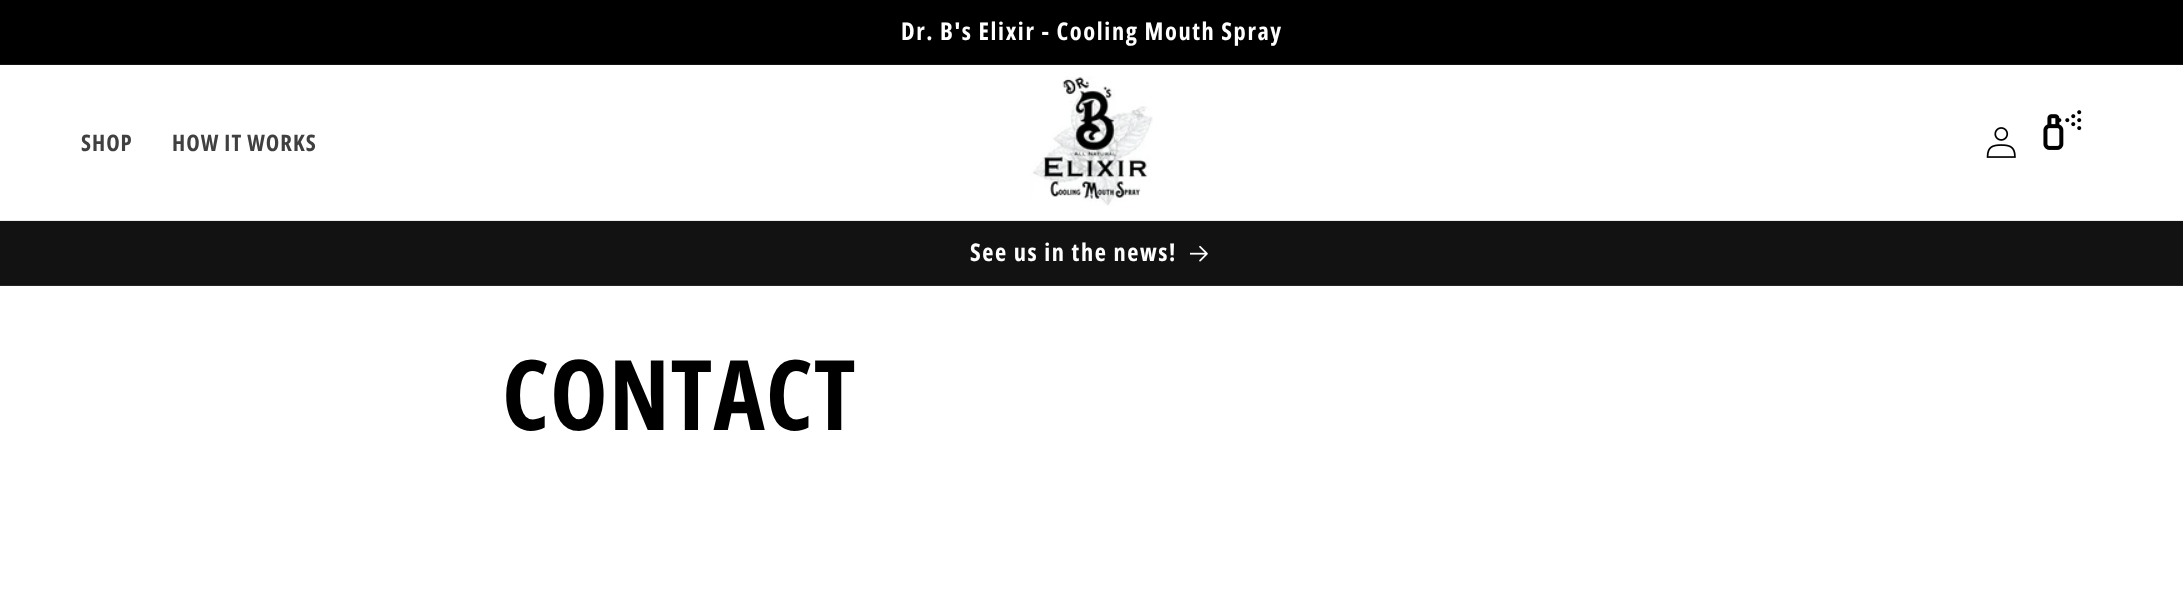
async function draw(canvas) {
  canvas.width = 2183
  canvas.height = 606
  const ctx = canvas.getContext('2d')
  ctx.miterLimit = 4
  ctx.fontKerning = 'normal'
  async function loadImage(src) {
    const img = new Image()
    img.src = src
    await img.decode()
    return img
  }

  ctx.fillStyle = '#fff'
  ctx.fillRect(0, 0, 2183, 606)
  ctx.fillStyle = '#000'
  ctx.fillRect(0, 0, 2183, 64)
  ctx.fillStyle = '#141414'
  ctx.fillRect(0, 64, 2183, 1)
  ctx.letterSpacing = '1.6px'
  ctx.font = 'bold 24.4px Open Sans Condensed'
  ctx.fillStyle = '#fff'
  ctx.fillText('Dr. B\'s Elixir - Cooling Mouth Spray', 901, 40)
  ctx.fillStyle = '#ebebeb'
  ctx.fillRect(0, 220, 2183, 1)
  ctx.letterSpacing = '1px'
  ctx.font = 'bold 22.75px Open Sans Condensed'
  ctx.fillStyle = '#404040'
  ctx.fillText('SHOP', 81, 151)
  ctx.fillText('HOW IT WORKS', 172, 151)
  ctx.drawImage(await loadImage('image0.png'), 1030, 76, 123, 130)
  ctx.drawImage(await loadImage('image1.png'), 1986, 127, 30, 31)
  ctx.drawImage(await loadImage('image2.png'), 2043, 110, 39, 40)
  ctx.fillStyle = '#121212'
  ctx.fillRect(0, 221, 2183, 64)
  ctx.fillStyle = '#252525'
  ctx.fillRect(0, 285, 2183, 1)
  ctx.letterSpacing = '1.6px'
  ctx.font = 'bold 24.4px Open Sans Condensed'
  ctx.fillStyle = '#fff'
  ctx.fillText('See us in the news!', 970, 261)
  ctx.drawImage(await loadImage('image3.png'), 1190, 245, 18, 17)
  ctx.letterSpacing = '1px'
  ctx.font = 'bold 97.5px Open Sans Condensed'
  ctx.fillStyle = '#000'
  ctx.fillText('CONTACT', 502, 430)
}

draw(document.querySelector('canvas'))
